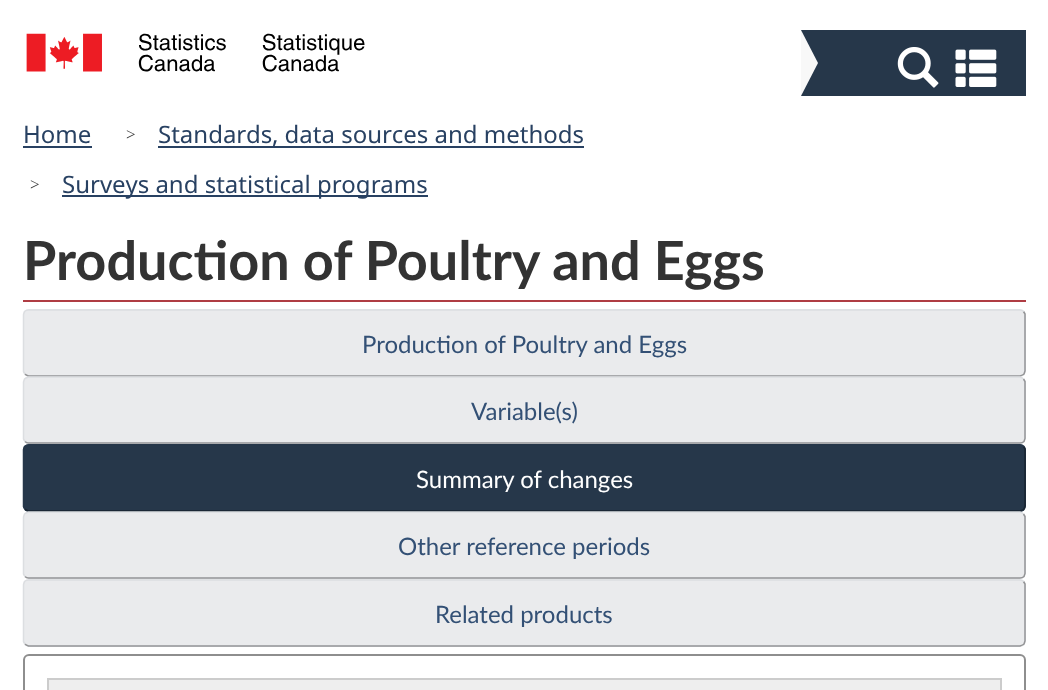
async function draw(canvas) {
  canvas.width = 1048
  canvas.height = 690
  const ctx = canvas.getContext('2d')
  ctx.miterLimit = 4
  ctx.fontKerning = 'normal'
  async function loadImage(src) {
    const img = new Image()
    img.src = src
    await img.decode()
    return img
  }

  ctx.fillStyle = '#fff'
  ctx.fillRect(0, 0, 1048, 690)
  ctx.drawImage(await loadImage('image0.png'), 26, 33, 339, 39)
  ctx.fillStyle = '#26374a'
  ctx.fillRect(801, 30, 225, 66)
  ctx.fillStyle = '#f8f8f8'
  ctx.beginPath()
  ctx.moveTo(801, 96)
  ctx.lineTo(801, 30)
  ctx.lineTo(818, 63)
  ctx.closePath()
  ctx.fill()
  ctx.drawImage(await loadImage('image1.png'), 897, 47, 42, 41)
  ctx.drawImage(await loadImage('image2.png'), 955, 49, 42, 38)
  ctx.font = '24px Noto Sans'
  ctx.fillStyle = '#284162'
  ctx.fillText('Home', 23, 143)
  ctx.fillRect(23, 146, 69, 2)
  ctx.font = '17px Liberation Serif'
  ctx.fillStyle = '#333'
  ctx.fillText('>', 126, 140)
  ctx.fillStyle = '#284162'
  ctx.fillRect(158, 146, 426, 2)
  ctx.font = '24px Noto Sans'
  ctx.fillText('Standards, data sources and methods', 158, 143)
  ctx.font = '17px Liberation Serif'
  ctx.fillStyle = '#333'
  ctx.fillText('>', 30, 190)
  ctx.fillStyle = '#284162'
  ctx.fillRect(62, 195, 366, 2)
  ctx.font = '24px Noto Sans'
  ctx.fillText('Surveys and statistical programs', 62, 193)
  ctx.fillStyle = '#af3c43'
  ctx.fillRect(23, 300, 1003, 2)
  ctx.font = 'bold 54px Lato'
  ctx.fillStyle = '#333'
  ctx.fillText('Production of Poultry and Eggs', 23, 280)
  ctx.fillStyle = '#eaebed'
  ctx.beginPath()
  ctx.roundRect(23, 309, 1003, 68, 6)
  ctx.fill()
  ctx.beginPath()
  ctx.moveTo(1023.5, 311.5)
  ctx.lineTo(1025, 314)
  ctx.lineTo(1025, 371)
  ctx.lineTo(1024, 374)
  ctx.bezierCurveTo(1023, 375, 1021.5, 375.5, 1020, 376)
  ctx.lineTo(28.5, 376)
  ctx.bezierCurveTo(27, 375.5, 26, 375, 25, 374)
  ctx.strokeStyle = '#939496'
  ctx.lineWidth = 1.5
  ctx.stroke()
  ctx.beginPath()
  ctx.moveTo(25, 374)
  ctx.lineTo(23.5, 371.5)
  ctx.lineTo(23.5, 314.5)
  ctx.lineTo(24.5, 311.5)
  ctx.bezierCurveTo(25.5, 310.5, 27, 310, 28.5, 310)
  ctx.lineTo(1020, 310)
  ctx.bezierCurveTo(1021.5, 310, 1022.5, 310.5, 1023.5, 311.5)
  ctx.strokeStyle = '#dcdee1'
  ctx.stroke()
  ctx.font = '24px Lato'
  ctx.fillStyle = '#335075'
  ctx.fillText('Production of Poultry and Eggs', 362, 353)
  ctx.fillStyle = '#eaebed'
  ctx.beginPath()
  ctx.roundRect(23, 377, 1003, 67, 6)
  ctx.fill()
  ctx.beginPath()
  ctx.moveTo(1023.5, 379)
  ctx.lineTo(1025, 381.5)
  ctx.lineTo(1025, 438.5)
  ctx.lineTo(1024, 441.5)
  ctx.bezierCurveTo(1023, 442.5, 1021.5, 443, 1020, 443)
  ctx.lineTo(28.5, 443)
  ctx.bezierCurveTo(27, 443, 26, 442.5, 25, 441.5)
  ctx.strokeStyle = '#939496'
  ctx.stroke()
  ctx.beginPath()
  ctx.moveTo(25, 441.5)
  ctx.lineTo(23.5, 439)
  ctx.lineTo(23.5, 382)
  ctx.lineTo(24.5, 379)
  ctx.bezierCurveTo(25.5, 378, 27, 377.5, 28.5, 377)
  ctx.lineTo(1020, 377)
  ctx.bezierCurveTo(1021.5, 377.5, 1022.5, 378, 1023.5, 379)
  ctx.strokeStyle = '#dcdee1'
  ctx.stroke()
  ctx.fillStyle = '#335075'
  ctx.fillText('Variable(s)', 471, 420)
  ctx.fillStyle = '#26374a'
  ctx.beginPath()
  ctx.roundRect(23, 444, 1003, 68, 6)
  ctx.fill()
  ctx.beginPath()
  ctx.moveTo(1023.5, 446.5)
  ctx.lineTo(1025, 449)
  ctx.lineTo(1025, 506)
  ctx.lineTo(1024, 509)
  ctx.bezierCurveTo(1023, 510, 1021.5, 510.5, 1020, 511)
  ctx.lineTo(28.5, 511)
  ctx.bezierCurveTo(27, 510.5, 26, 510, 25, 509)
  ctx.strokeStyle = '#192531'
  ctx.stroke()
  ctx.beginPath()
  ctx.moveTo(25, 509)
  ctx.lineTo(23.5, 506.5)
  ctx.lineTo(23.5, 449.5)
  ctx.lineTo(24.5, 446.5)
  ctx.bezierCurveTo(25.5, 445.5, 27, 445, 28.5, 445)
  ctx.lineTo(1020, 445)
  ctx.bezierCurveTo(1021.5, 445, 1022.5, 445.5, 1023.5, 446.5)
  ctx.strokeStyle = '#26374a'
  ctx.stroke()
  ctx.fillStyle = '#fff'
  ctx.fillText('Summary of changes', 416, 488)
  ctx.fillStyle = '#eaebed'
  ctx.beginPath()
  ctx.roundRect(23, 512, 1003, 67, 6)
  ctx.fill()
  ctx.beginPath()
  ctx.moveTo(1023.5, 514)
  ctx.lineTo(1025, 516.5)
  ctx.lineTo(1025, 573.5)
  ctx.lineTo(1024, 576.5)
  ctx.bezierCurveTo(1023, 577.5, 1021.5, 578, 1020, 578)
  ctx.lineTo(28.5, 578)
  ctx.bezierCurveTo(27, 578, 26, 577.5, 25, 576.5)
  ctx.strokeStyle = '#939496'
  ctx.stroke()
  ctx.beginPath()
  ctx.moveTo(25, 576.5)
  ctx.lineTo(23.5, 574)
  ctx.lineTo(23.5, 517)
  ctx.lineTo(24.5, 514)
  ctx.bezierCurveTo(25.5, 513, 27, 512.5, 28.5, 512)
  ctx.lineTo(1020, 512)
  ctx.bezierCurveTo(1021.5, 512.5, 1022.5, 513, 1023.5, 514)
  ctx.strokeStyle = '#dcdee1'
  ctx.stroke()
  ctx.fillStyle = '#335075'
  ctx.fillText('Other reference periods', 398, 555)
  ctx.fillStyle = '#eaebed'
  ctx.beginPath()
  ctx.roundRect(23, 579, 1003, 68, 6)
  ctx.fill()
  ctx.beginPath()
  ctx.moveTo(1023.5, 581.5)
  ctx.lineTo(1025, 584)
  ctx.lineTo(1025, 641)
  ctx.lineTo(1024, 644)
  ctx.bezierCurveTo(1023, 645, 1021.5, 645.5, 1020, 646)
  ctx.lineTo(28.5, 646)
  ctx.bezierCurveTo(27, 645.5, 26, 645, 25, 644)
  ctx.strokeStyle = '#939496'
  ctx.stroke()
  ctx.beginPath()
  ctx.moveTo(25, 644)
  ctx.lineTo(23.5, 641.5)
  ctx.lineTo(23.5, 584.5)
  ctx.lineTo(24.5, 581.5)
  ctx.bezierCurveTo(25.5, 580.5, 27, 580, 28.5, 580)
  ctx.lineTo(1020, 580)
  ctx.bezierCurveTo(1021.5, 580, 1022.5, 580.5, 1023.5, 581.5)
  ctx.strokeStyle = '#dcdee1'
  ctx.stroke()
  ctx.fillStyle = '#335075'
  ctx.fillText('Related products', 435, 623)
  ctx.beginPath()
  ctx.roundRect(24, 655, 1001, 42, 5)
  ctx.strokeStyle = '#8e8e8e'
  ctx.lineWidth = 2
  ctx.stroke()
  ctx.fillStyle = '#eee'
  ctx.beginPath()
  ctx.rect(48, 679, 953, 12)
  ctx.fill()
  ctx.strokeStyle = '#ccc'
  ctx.stroke()
}

draw(document.querySelector('canvas'))
